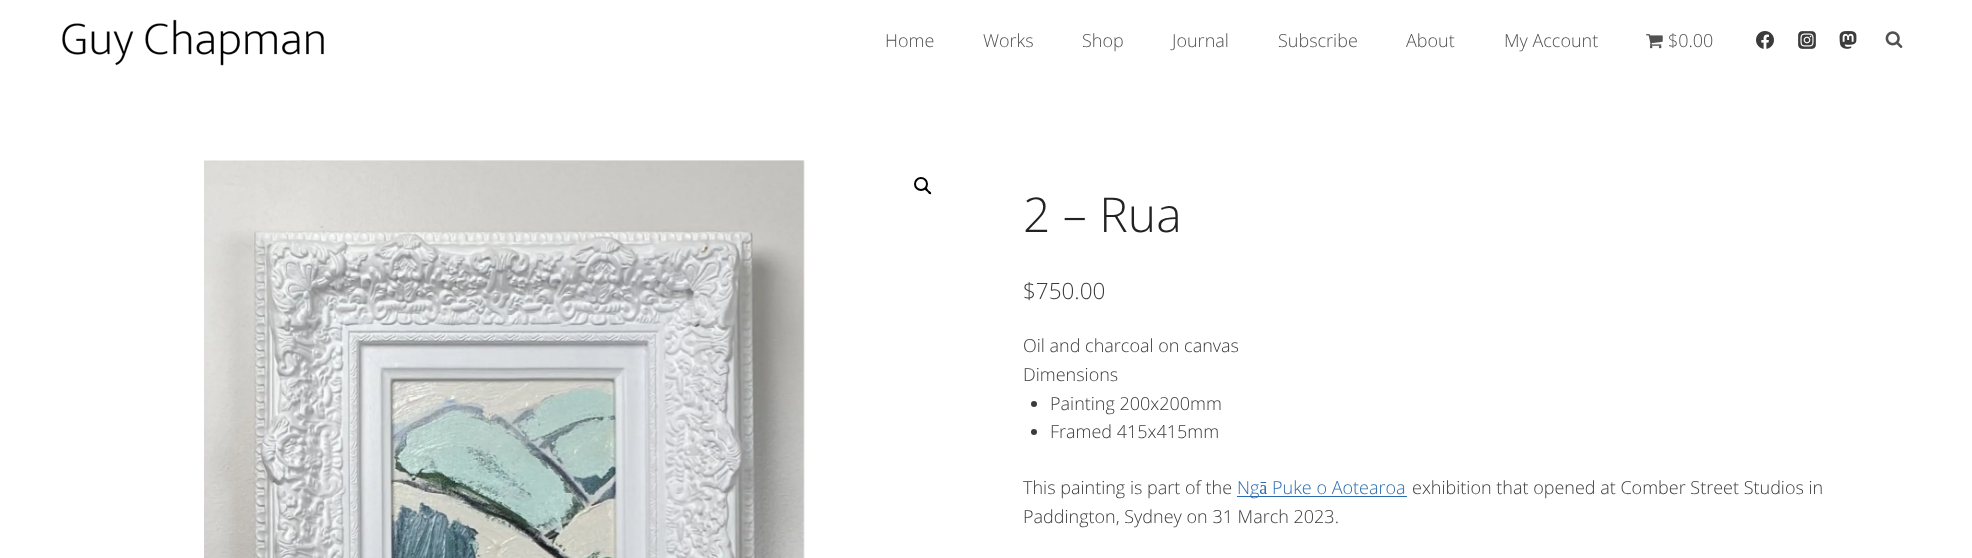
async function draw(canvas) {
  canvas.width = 1972
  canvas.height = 558
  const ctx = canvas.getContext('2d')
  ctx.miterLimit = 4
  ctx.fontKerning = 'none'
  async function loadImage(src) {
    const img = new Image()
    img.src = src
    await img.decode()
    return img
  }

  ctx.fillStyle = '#fff'
  ctx.fillRect(0, 0, 1972, 558)
  ctx.drawImage(await loadImage('image0.png'), 62, 19, 262, 47)
  ctx.font = '300 18px Open Sans'
  ctx.fillStyle = '#515151'
  ctx.fillText('Home', 885, 47)
  ctx.fillText('Works', 983, 47)
  ctx.fillText('Shop', 1082, 47)
  ctx.fillText('Journal', 1172, 47)
  ctx.fillText('Subscribe', 1278, 47)
  ctx.fillText('About', 1406, 47)
  ctx.fillText('My Account', 1504, 47)
  ctx.drawImage(await loadImage('image1.png'), 1646, 34, 17, 15)
  ctx.fillText('$0.00', 1668, 47)
  ctx.drawImage(await loadImage('image2.png'), 1756, 31, 18, 18)
  ctx.drawImage(await loadImage('image3.png'), 1798, 31, 18, 18)
  ctx.drawImage(await loadImage('image4.png'), 1839, 31, 18, 18)
  ctx.drawImage(await loadImage('image5.png'), 1885, 31, 18, 17)
  ctx.drawImage(await loadImage('image6.png'), 204, 160, 601, 398)
  ctx.beginPath()
  ctx.arc(921, 184, 6, 0, 2 * Math.PI)
  ctx.strokeStyle = '#000'
  ctx.lineWidth = 2
  ctx.stroke()
  ctx.fillStyle = '#000'
  ctx.beginPath()
  ctx.moveTo(925, 188)
  ctx.bezierCurveTo(926.5, 187, 928, 189.5, 928.5, 190.5)
  ctx.bezierCurveTo(929.5, 191, 932, 192.5, 931, 194)
  ctx.bezierCurveTo(929.5, 195, 928, 192.5, 927, 191.5)
  ctx.bezierCurveTo(926.5, 191, 924, 189.5, 925, 188)
  ctx.closePath()
  ctx.fill()
  ctx.font = '300 48px Open Sans'
  ctx.fillStyle = '#222'
  ctx.fillText('2 – Rua', 1023, 232)
  ctx.font = '300 22.5px Open Sans'
  ctx.fillStyle = '#3b3b3b'
  ctx.fillText('$750.00', 1023, 299)
  ctx.font = '300 18px Open Sans'
  ctx.fillText('Oil and charcoal on canvas', 1023, 352)
  ctx.fillText('Dimensions', 1023, 381)
  ctx.beginPath()
  ctx.arc(1034, 404, 3, 0, 2 * Math.PI)
  ctx.fill()
  ctx.fillText('Painting 200x200mm', 1050, 410)
  ctx.beginPath()
  ctx.arc(1034, 432, 3, 0, 2 * Math.PI)
  ctx.fill()
  ctx.fillText('Framed 415x415mm', 1050, 438)
  ctx.fillText('This painting is part of the', 1023, 494)
  ctx.fillStyle = '#2b6cb0'
  ctx.fillRect(1237, 496, 170, 1)
  ctx.fillText('Ngā Puke o Aotearoa', 1237, 494)
  ctx.fillStyle = '#3b3b3b'
  ctx.fillText('exhibition that opened at Comber Street Studios in', 1412, 494)
  ctx.fillText('Paddington, Sydney on 31 March 2023.', 1023, 523)
}

draw(document.querySelector('canvas'))
